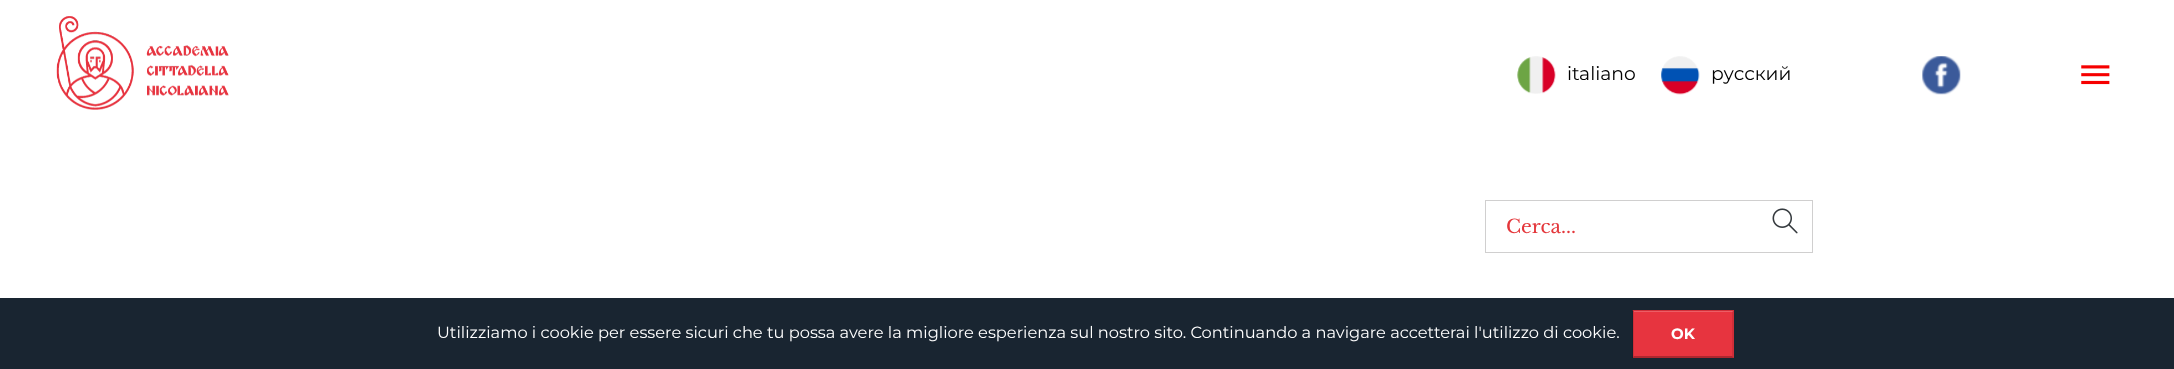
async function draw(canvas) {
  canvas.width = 2174
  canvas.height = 369
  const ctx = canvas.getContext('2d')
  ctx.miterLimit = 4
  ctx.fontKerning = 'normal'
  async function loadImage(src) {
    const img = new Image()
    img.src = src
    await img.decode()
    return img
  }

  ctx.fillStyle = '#fff'
  ctx.fillRect(0, 0, 2174, 369)
  ctx.drawImage(await loadImage('image0.png'), 56, 16, 173, 94)
  ctx.drawImage(await loadImage('image1.png'), 1517, 56, 39, 38)
  ctx.font = '18.75px Montserrat'
  ctx.fillStyle = '#000'
  ctx.fillText('italiano', 1567, 80)
  ctx.drawImage(await loadImage('image2.png'), 1661, 56, 39, 39)
  ctx.fillText('русский', 1711, 80)
  ctx.drawImage(await loadImage('image3.png'), 1922, 56, 39, 39)
  ctx.drawImage(await loadImage('image4.png'), 2081, 65, 29, 20)
  ctx.strokeStyle = '#d0cfcf'
  ctx.strokeRect(1485.5, 200.5, 327, 52)
  ctx.font = '18.75px Libre Baskerville'
  ctx.fillStyle = '#e4373b'
  ctx.fillText('Cerca...', 1506, 233)
  ctx.drawImage(await loadImage('image5.png'), 1772, 208, 26, 26)
  ctx.fillStyle = '#192531'
  ctx.fillRect(0, 298, 2174, 71)
  ctx.font = '16.25px Montserrat'
  ctx.fillStyle = '#fff'
  ctx.fillText('Utilizziamo i cookie per essere sicuri che tu possa avere la migliore esperienza sul nostro sito. Continuando a navigare accetterai l\'utilizzo di cookie.', 437, 338)
  ctx.fillStyle = '#e7343f'
  ctx.fillRect(1633, 310, 101, 48)
  ctx.fillStyle = '#ec5d65'
  ctx.fillRect(1634, 311, 99, 1)
  ctx.fillStyle = '#d02f39'
  ctx.beginPath()
  ctx.moveTo(1632, 310)
  ctx.lineTo(1734, 310)
  ctx.lineTo(1732, 311)
  ctx.lineTo(1634, 311)
  ctx.closePath()
  ctx.fill()
  ctx.fillStyle = '#0000001a'
  ctx.beginPath()
  ctx.moveTo(1734, 310)
  ctx.lineTo(1734, 358)
  ctx.lineTo(1732, 356)
  ctx.lineTo(1732, 311)
  ctx.closePath()
  ctx.fill()
  ctx.fillStyle = '#00000040'
  ctx.beginPath()
  ctx.moveTo(1734, 358)
  ctx.lineTo(1632, 358)
  ctx.lineTo(1634, 356)
  ctx.lineTo(1732, 356)
  ctx.closePath()
  ctx.fill()
  ctx.fillStyle = '#0000001a'
  ctx.beginPath()
  ctx.moveTo(1632, 358)
  ctx.lineTo(1632, 310)
  ctx.lineTo(1634, 311)
  ctx.lineTo(1634, 356)
  ctx.closePath()
  ctx.fill()
  ctx.font = 'bold 15px Montserrat'
  ctx.fillStyle = '#fff'
  ctx.fillText('OK', 1671, 339)
}

draw(document.querySelector('canvas'))
